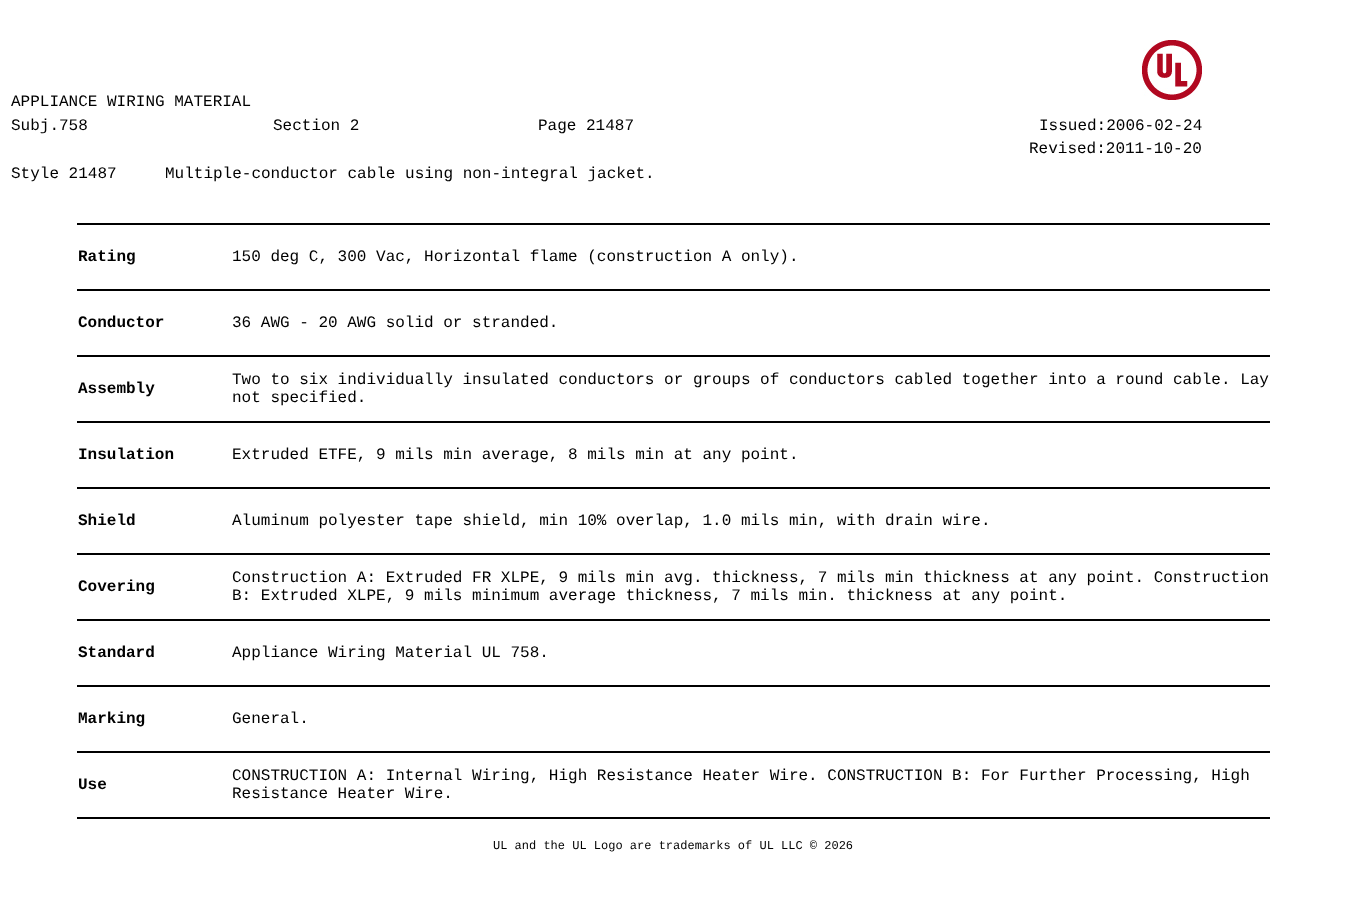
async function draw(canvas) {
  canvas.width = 1346
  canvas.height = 909
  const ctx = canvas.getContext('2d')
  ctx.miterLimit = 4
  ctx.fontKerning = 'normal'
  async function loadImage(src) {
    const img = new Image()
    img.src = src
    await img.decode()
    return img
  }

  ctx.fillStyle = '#fff'
  ctx.fillRect(0, 0, 1346, 909)
  ctx.font = '16px Liberation Mono'
  ctx.fillStyle = '#000'
  ctx.fillText('APPLIANCE WIRING MATERIAL', 11, 106)
  ctx.drawImage(await loadImage('image0.png'), 1142, 40, 60, 60)
  ctx.fillText('Subj.758', 11, 130)
  ctx.fillText('Section 2', 273, 130)
  ctx.fillText('Page 21487', 538, 130)
  ctx.fillText('Issued:2006-02-24', 1039, 130)
  ctx.fillText('Revised:2011-10-20', 1029, 153)
  ctx.fillText('Style 21487', 11, 178)
  ctx.fillText('Multiple-conductor cable using non-integral jacket.', 165, 178)
  ctx.fillRect(77, 223, 1193, 2)
  ctx.font = 'bold 16px Liberation Mono'
  ctx.fillText('Rating', 78, 261)
  ctx.font = '16px Liberation Mono'
  ctx.fillText('150 deg C, 300 Vac, Horizontal flame (construction A only).', 232, 261)
  ctx.fillRect(77, 289, 1193, 2)
  ctx.font = 'bold 16px Liberation Mono'
  ctx.fillText('Conductor', 78, 327)
  ctx.font = '16px Liberation Mono'
  ctx.fillText('36 AWG - 20 AWG solid or stranded.', 232, 327)
  ctx.fillRect(77, 355, 1193, 2)
  ctx.font = 'bold 16px Liberation Mono'
  ctx.fillText('Assembly', 78, 393)
  ctx.font = '16px Liberation Mono'
  ctx.fillText('Two to six individually insulated conductors or groups of conductors cabled together into a round cable. Lay', 232, 384)
  ctx.fillText('not specified.', 232, 402)
  ctx.fillRect(77, 421, 1193, 2)
  ctx.font = 'bold 16px Liberation Mono'
  ctx.fillText('Insulation', 78, 459)
  ctx.font = '16px Liberation Mono'
  ctx.fillText('Extruded ETFE, 9 mils min average, 8 mils min at any point.', 232, 459)
  ctx.fillRect(77, 487, 1193, 2)
  ctx.font = 'bold 16px Liberation Mono'
  ctx.fillText('Shield', 78, 525)
  ctx.font = '16px Liberation Mono'
  ctx.fillText('Aluminum polyester tape shield, min 10% overlap, 1.0 mils min, with drain wire.', 232, 525)
  ctx.fillRect(77, 553, 1193, 2)
  ctx.font = 'bold 16px Liberation Mono'
  ctx.fillText('Covering', 78, 591)
  ctx.font = '16px Liberation Mono'
  ctx.fillText('Construction A: Extruded FR XLPE, 9 mils min avg. thickness, 7 mils min thickness at any point. Construction', 232, 582)
  ctx.fillText('B: Extruded XLPE, 9 mils minimum average thickness, 7 mils min. thickness at any point.', 232, 600)
  ctx.fillRect(77, 619, 1193, 2)
  ctx.font = 'bold 16px Liberation Mono'
  ctx.fillText('Standard', 78, 657)
  ctx.font = '16px Liberation Mono'
  ctx.fillText('Appliance Wiring Material UL 758.', 232, 657)
  ctx.fillRect(77, 685, 1193, 2)
  ctx.font = 'bold 16px Liberation Mono'
  ctx.fillText('Marking', 78, 723)
  ctx.font = '16px Liberation Mono'
  ctx.fillText('General.', 232, 723)
  ctx.fillRect(77, 751, 1193, 2)
  ctx.font = 'bold 16px Liberation Mono'
  ctx.fillText('Use', 78, 789)
  ctx.font = '16px Liberation Mono'
  ctx.fillText('CONSTRUCTION A: Internal Wiring, High Resistance Heater Wire. CONSTRUCTION B: For Further Processing, High', 232, 780)
  ctx.fillText('Resistance Heater Wire.', 232, 798)
  ctx.fillRect(77, 817, 1193, 2)
  ctx.font = '12px Liberation Mono'
  ctx.fillText('UL and the UL Logo are trademarks of UL LLC © 2026', 493, 849)
}

draw(document.querySelector('canvas'))
